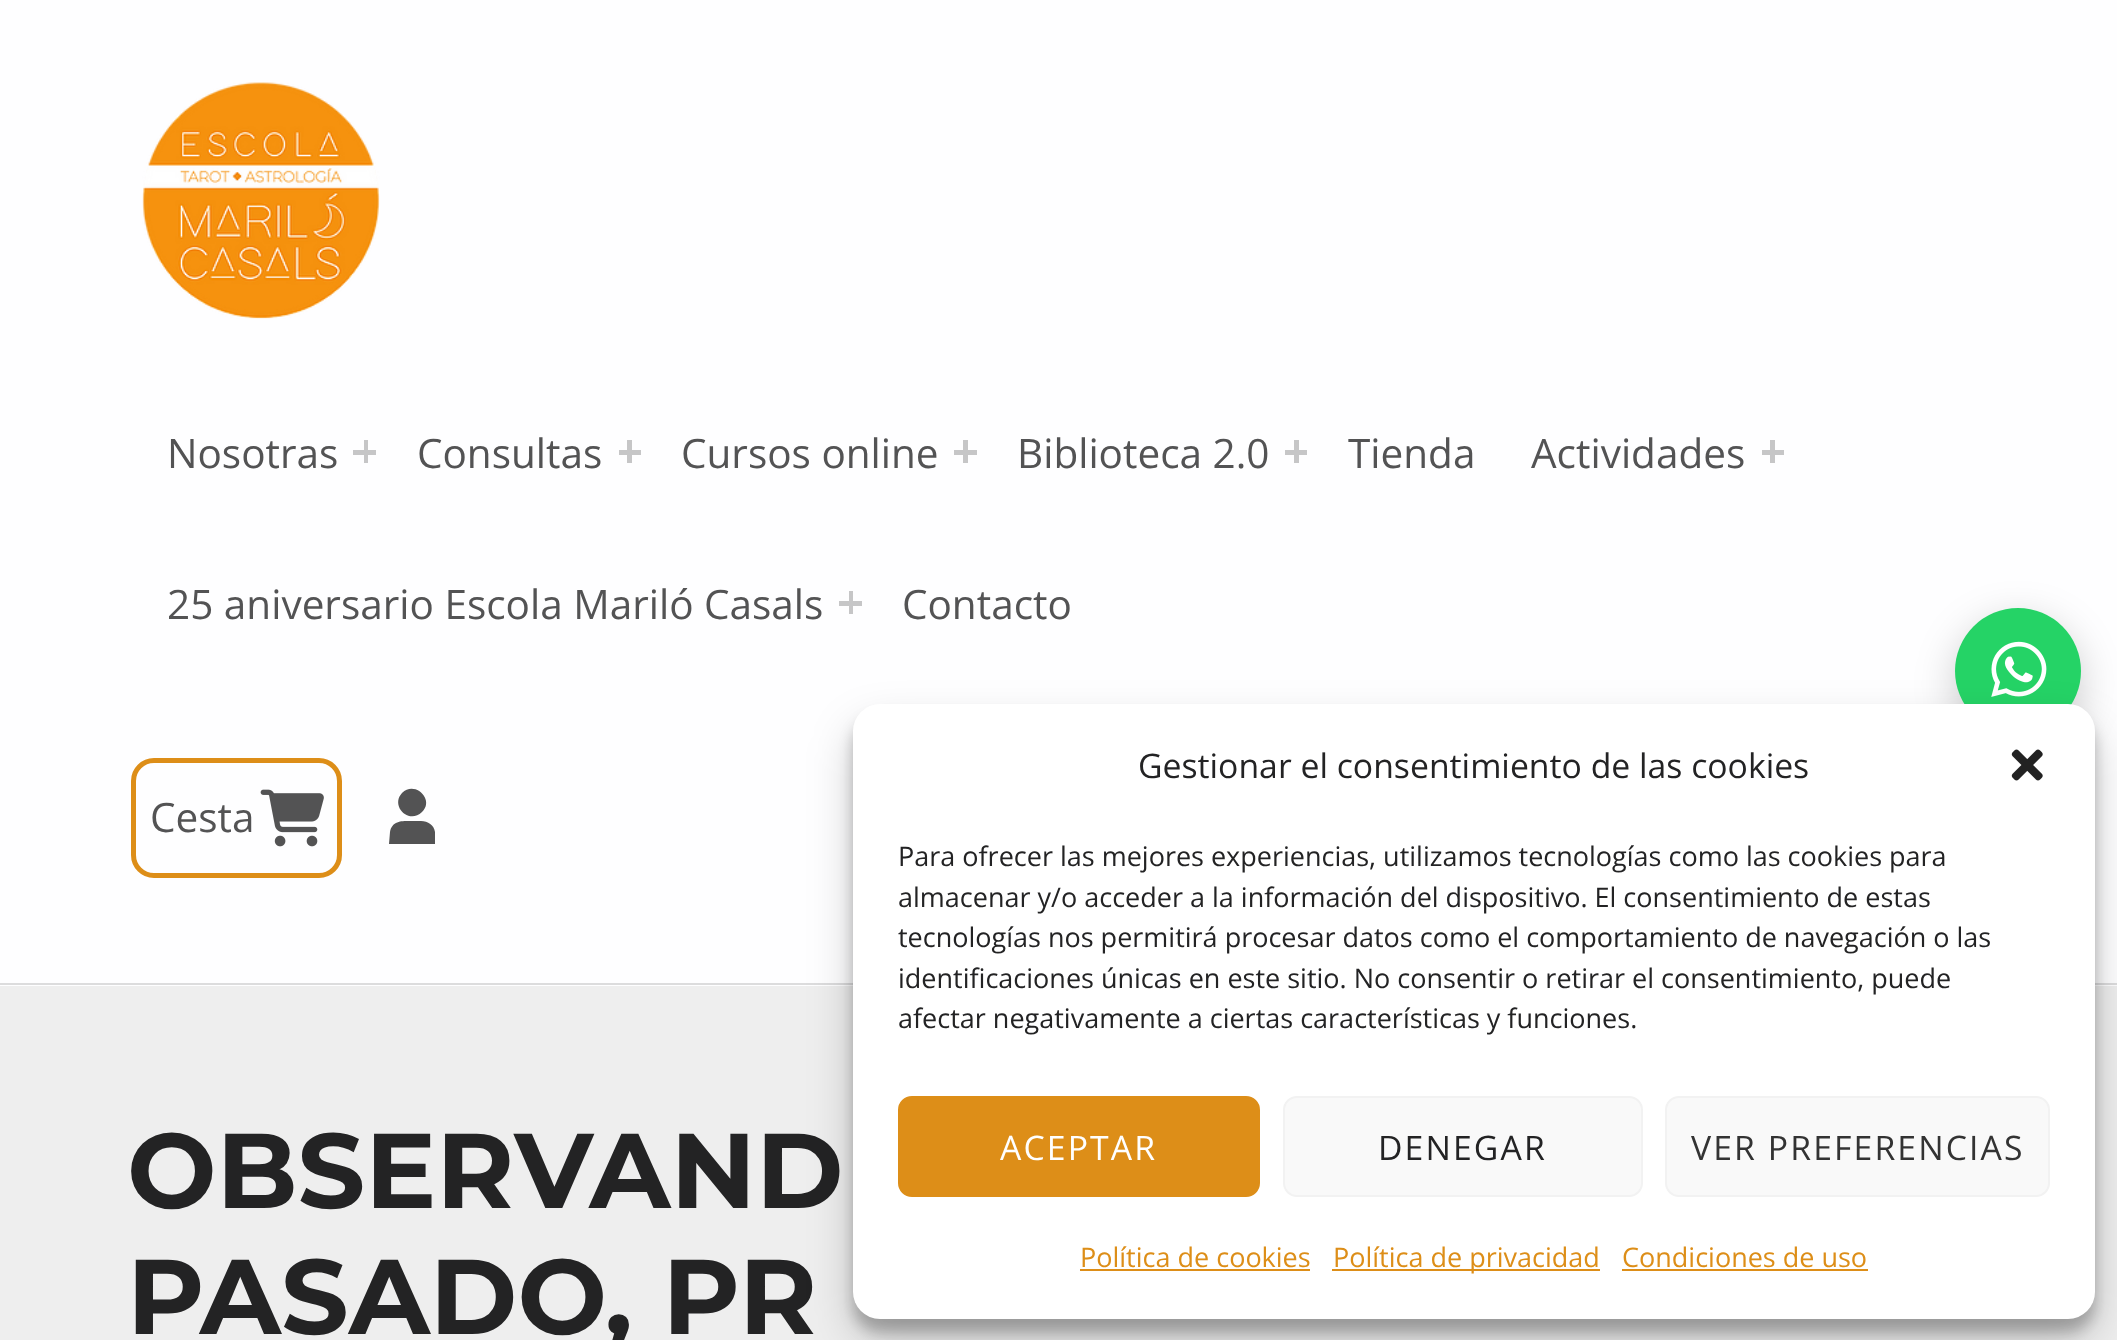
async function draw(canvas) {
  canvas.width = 2117
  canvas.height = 1340
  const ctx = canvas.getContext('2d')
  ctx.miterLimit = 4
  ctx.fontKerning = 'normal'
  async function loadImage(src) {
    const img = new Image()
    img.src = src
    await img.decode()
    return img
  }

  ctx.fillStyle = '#fefeff'
  ctx.fillRect(0, 0, 2117, 1340)
  ctx.fillStyle = '#dcdcdd'
  ctx.fillRect(0, 983, 2117, 2)
  ctx.drawImage(await loadImage('image0.png'), 142, 82, 238, 237)
  ctx.font = '40.5px Open Sans'
  ctx.fillStyle = '#535354'
  ctx.fillText('Nosotras', 167, 468)
  ctx.fillStyle = '#c6c6c7'
  ctx.fillRect(353, 450, 23, 5)
  ctx.fillRect(364, 440, 4, 23)
  ctx.fillStyle = '#535354'
  ctx.fillText('Consultas', 417, 468)
  ctx.fillStyle = '#c6c6c7'
  ctx.fillRect(619, 450, 22, 5)
  ctx.fillRect(627, 440, 5, 23)
  ctx.fillStyle = '#535354'
  ctx.fillText('Cursos online', 681, 468)
  ctx.fillStyle = '#c6c6c7'
  ctx.fillRect(954, 450, 23, 5)
  ctx.fillRect(963, 440, 5, 23)
  ctx.fillStyle = '#535354'
  ctx.fillText('Biblioteca 2.0', 1017, 468)
  ctx.fillStyle = '#c6c6c7'
  ctx.fillRect(1285, 450, 22, 5)
  ctx.fillRect(1294, 440, 5, 23)
  ctx.fillStyle = '#535354'
  ctx.fillText('Tienda', 1348, 468)
  ctx.fillText('Actividades', 1531, 468)
  ctx.fillStyle = '#c6c6c7'
  ctx.fillRect(1762, 450, 22, 5)
  ctx.fillRect(1770, 440, 5, 23)
  ctx.fillStyle = '#535354'
  ctx.fillText('25 aniversario Escola Mariló Casals', 167, 619)
  ctx.fillStyle = '#c6c6c7'
  ctx.fillRect(839, 601, 23, 5)
  ctx.fillRect(849, 591, 4, 23)
  ctx.fillStyle = '#535354'
  ctx.fillText('Contacto', 902, 619)
  ctx.beginPath()
  ctx.roundRect(133.5, 760.5, 206, 115, 20.5)
  ctx.strokeStyle = '#dd8e18'
  ctx.lineWidth = 5
  ctx.stroke()
  ctx.fillText('Cesta', 150, 832)
  ctx.drawImage(await loadImage('image1.png'), 260, 789, 64, 58)
  ctx.beginPath()
  ctx.moveTo(422, 812)
  ctx.bezierCurveTo(409, 825, 390, 806, 402, 793)
  ctx.bezierCurveTo(415, 780, 435, 800, 422, 812)
  ctx.closePath()
  ctx.moveTo(421, 821)
  ctx.bezierCurveTo(428, 821, 434, 825, 435, 832)
  ctx.lineTo(435, 844)
  ctx.lineTo(389, 844)
  ctx.lineTo(390, 832)
  ctx.bezierCurveTo(392, 821, 401, 821, 409, 821)
  ctx.closePath()
  ctx.fill()
  ctx.fillStyle = '#eee'
  ctx.fillRect(0, 986, 2117, 354)
  ctx.font = 'bold 106px Montserrat'
  ctx.fillStyle = '#232324'
  ctx.fillText('OBSERVAND', 127, 1208)
  ctx.fillText('PASADO, PR', 127, 1334)
  ctx.fillStyle = '#00000033'
  ctx.filter = 'blur(20px)'
  ctx.beginPath()
  ctx.roundRect(1955, 621, 126, 126, 63)
  ctx.fill()
  ctx.filter = 'none'
  ctx.fillStyle = '#25d366'
  ctx.beginPath()
  ctx.arc(2018, 671, 63, 0, 2 * Math.PI)
  ctx.fill()
  ctx.drawImage(await loadImage('image2.png'), 1991, 641, 56, 56)
  ctx.fillStyle = '#0000003b'
  ctx.filter = 'blur(7px)'
  ctx.beginPath()
  ctx.roundRect(853, 718, 1242, 614, 27)
  ctx.fill()
  ctx.filter = 'none'
  ctx.fillStyle = '#00000030'
  ctx.filter = 'blur(22.5px)'
  ctx.beginPath()
  ctx.roundRect(853, 727, 1242, 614, 27)
  ctx.fill()
  ctx.filter = 'none'
  ctx.fillStyle = '#fff'
  ctx.beginPath()
  ctx.roundRect(853, 704, 1242, 615, 27)
  ctx.fill()
  ctx.font = '33.75px Open Sans'
  ctx.fillStyle = '#232324'
  ctx.fillText('Gestionar el consentimiento de las cookies', 1138, 778)
  ctx.drawImage(await loadImage('image3.png'), 2011, 749, 32, 32)
  ctx.font = '27px Open Sans'
  ctx.fillText('Para ofrecer las mejores experiencias, utilizamos tecnologías como las cookies para', 898, 866)
  ctx.fillText('almacenar y/o acceder a la información del dispositivo. El consentimiento de estas', 898, 907)
  ctx.fillText('tecnologías nos permitirá procesar datos como el comportamiento de navegación o las', 898, 947)
  ctx.fillText('identificaciones únicas en este sitio. No consentir o retirar el consentimiento, puede', 898, 988)
  ctx.fillText('afectar negativamente a ciertas características y funciones.', 898, 1028)
  ctx.fillStyle = '#dd8e18'
  ctx.beginPath()
  ctx.roundRect(899, 1097, 360, 99, 13)
  ctx.fill()
  ctx.lineWidth = 2
  ctx.stroke()
  ctx.letterSpacing = '2.1px'
  ctx.font = '33.75px Open Sans'
  ctx.fillStyle = '#fff'
  ctx.fillText('ACEPTAR', 1000, 1160)
  ctx.fillStyle = '#f9f9f9'
  ctx.beginPath()
  ctx.roundRect(1284, 1097, 358, 99, 13)
  ctx.fill()
  ctx.strokeStyle = '#f2f2f2'
  ctx.stroke()
  ctx.fillStyle = '#232324'
  ctx.fillText('DENEGAR', 1378, 1160)
  ctx.fillStyle = '#f9f9f9'
  ctx.beginPath()
  ctx.roundRect(1666, 1097, 383, 99, 13)
  ctx.fill()
  ctx.stroke()
  ctx.fillStyle = '#333'
  ctx.fillText('VER PREFERENCIAS', 1691, 1160)
  ctx.letterSpacing = '0px'
  ctx.font = '27px Open Sans'
  ctx.fillStyle = '#dd8e18'
  ctx.fillText('Política de cookies', 1080, 1267)
  ctx.fillRect(1080, 1269, 230, 2)
  ctx.fillRect(1332, 1269, 268, 2)
  ctx.fillText('Política de privacidad', 1333, 1267)
  ctx.fillText('Condiciones de uso', 1622, 1267)
  ctx.fillRect(1622, 1269, 246, 2)
}

draw(document.querySelector('canvas'))
